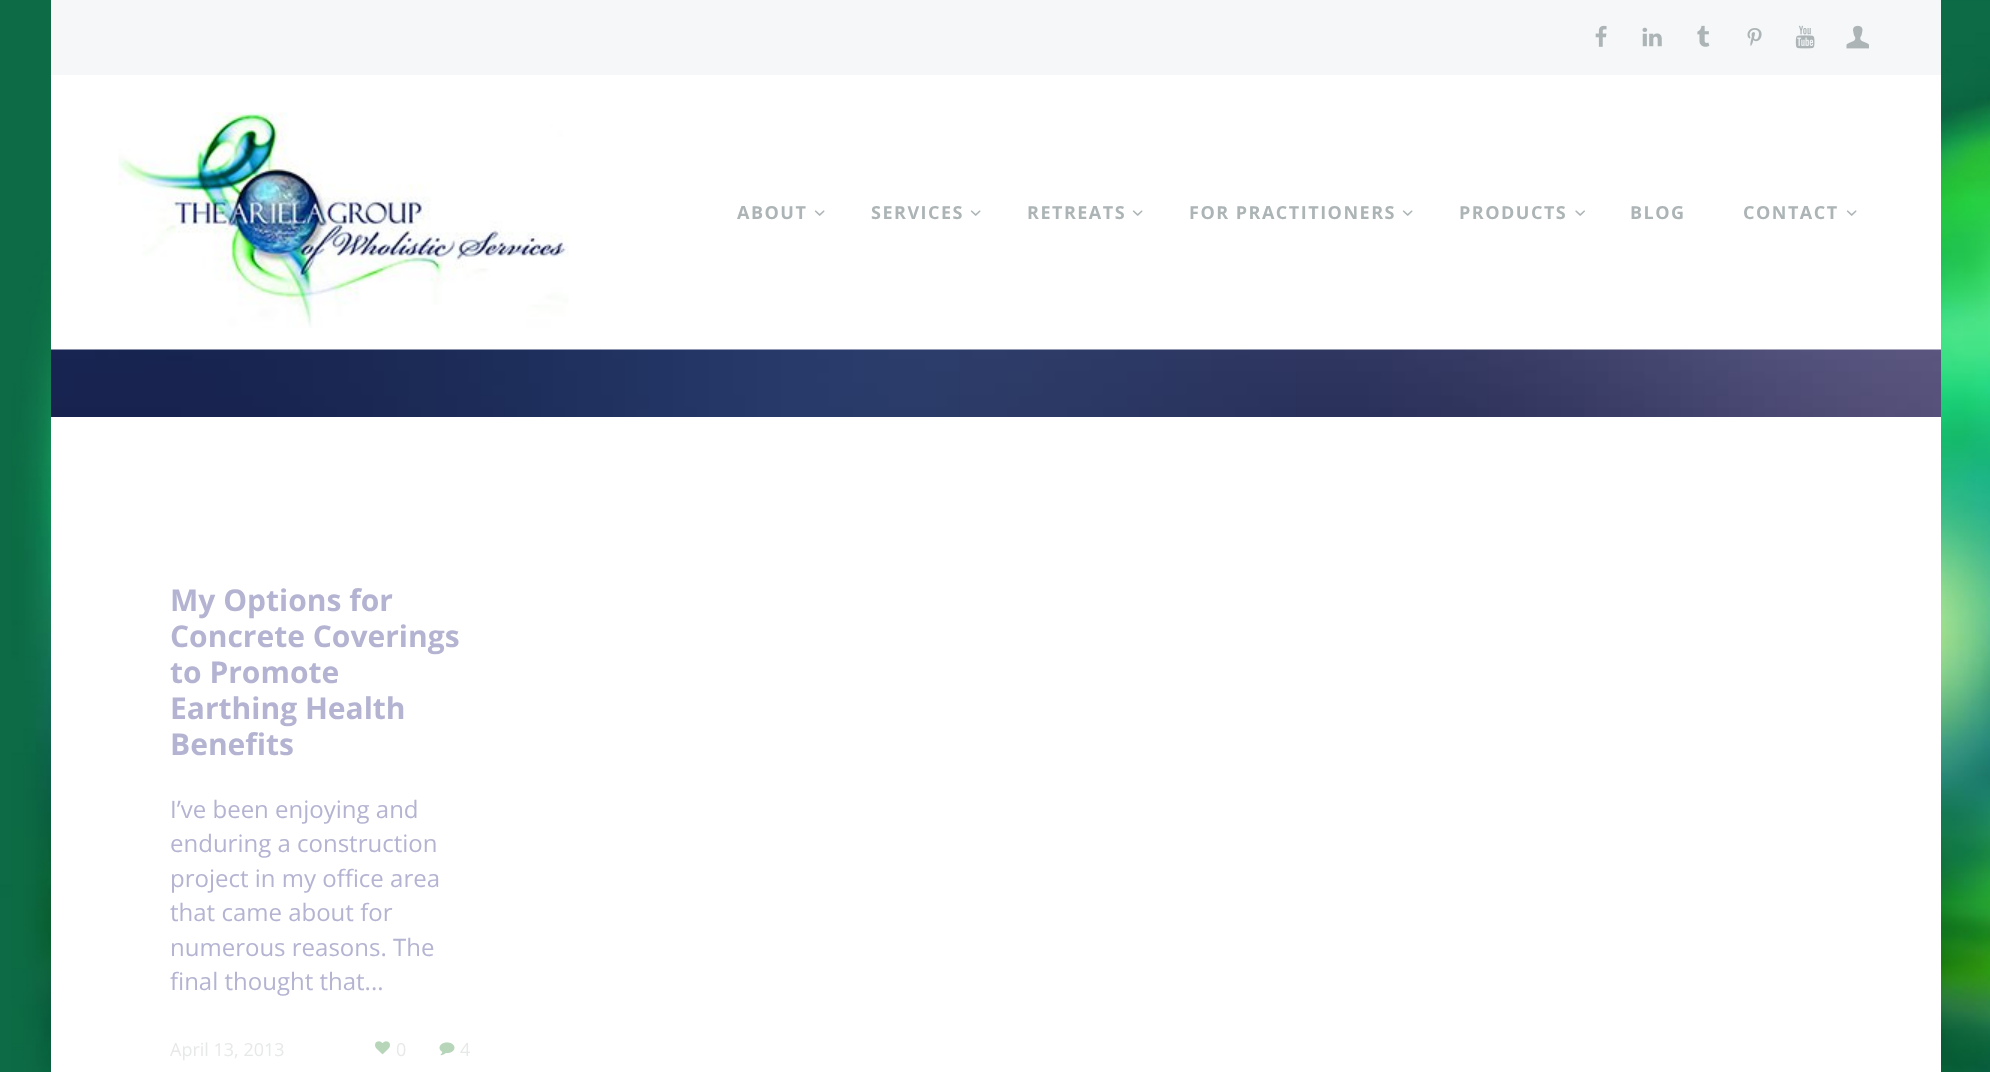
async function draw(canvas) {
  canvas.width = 1990
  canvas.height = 1072
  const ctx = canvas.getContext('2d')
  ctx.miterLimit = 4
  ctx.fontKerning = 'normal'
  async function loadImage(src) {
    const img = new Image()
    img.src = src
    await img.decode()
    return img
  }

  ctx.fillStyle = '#fff'
  ctx.fillRect(0, 0, 1990, 1072)
  ctx.drawImage(await loadImage('image0.png'), 0, 0, 1990, 1072)
  ctx.fillRect(51, 75, 1890, 275)
  ctx.fillStyle = '#f5f7f9'
  ctx.fillRect(51, 0, 1890, 75)
  ctx.drawImage(await loadImage('image1.png'), 1595, 25, 12, 22)
  ctx.drawImage(await loadImage('image2.png'), 1642, 27, 20, 20)
  ctx.drawImage(await loadImage('image3.png'), 1697, 25, 13, 22)
  ctx.drawImage(await loadImage('image4.png'), 1747, 28, 15, 18)
  ctx.drawImage(await loadImage('image5.png'), 1795, 25, 20, 24)
  ctx.drawImage(await loadImage('image6.png'), 1846, 25, 23, 24)
  ctx.drawImage(await loadImage('image7.png'), 118, 112, 451, 216)
  ctx.letterSpacing = '1.5px'
  ctx.font = 'bold 18px Open Sans'
  ctx.fillStyle = '#acb4b6'
  ctx.fillText('ABOUT', 737, 219)
  ctx.drawImage(await loadImage('image8.png'), 814, 210, 11, 6)
  ctx.fillText('SERVICES', 871, 219)
  ctx.drawImage(await loadImage('image8.png'), 970, 210, 11, 6)
  ctx.fillText('RETREATS', 1027, 219)
  ctx.drawImage(await loadImage('image8.png'), 1132, 210, 11, 6)
  ctx.fillText('FOR PRACTITIONERS', 1189, 219)
  ctx.drawImage(await loadImage('image8.png'), 1402, 210, 11, 6)
  ctx.fillText('PRODUCTS', 1459, 219)
  ctx.drawImage(await loadImage('image9.png'), 1575, 210, 10, 6)
  ctx.fillText('BLOG', 1630, 219)
  ctx.fillText('CONTACT', 1743, 219)
  ctx.drawImage(await loadImage('image8.png'), 1846, 210, 11, 6)
  ctx.drawImage(await loadImage('image10.png'), 51, 349, 1890, 68)
  ctx.fillStyle = '#fff'
  ctx.fillRect(51, 417, 1890, 655)
  ctx.letterSpacing = '0px'
  ctx.font = 'bold 30px Open Sans'
  ctx.fillStyle = '#b4b4d2'
  ctx.fillText('My Options for', 170, 611)
  ctx.fillText('Concrete Coverings', 170, 647)
  ctx.fillText('to Promote', 170, 683)
  ctx.fillText('Earthing Health', 170, 719)
  ctx.fillText('Benefits', 170, 755)
  ctx.font = '24px Open Sans'
  ctx.fillText('I’ve been enjoying and', 170, 818)
  ctx.fillText('enduring a construction', 170, 852)
  ctx.fillText('project in my office area', 170, 887)
  ctx.fillText('that came about for', 170, 921)
  ctx.fillText('numerous reasons. The', 170, 956)
  ctx.fillText('final thought that...', 170, 990)
  ctx.font = '18px Open Sans'
  ctx.fillStyle = '#e7e9e9'
  ctx.fillText('April 13, 2013', 170, 1056)
  ctx.drawImage(await loadImage('image11.png'), 375, 1041, 15, 14)
  ctx.fillText('0', 396, 1056)
  ctx.drawImage(await loadImage('image12.png'), 439, 1042, 16, 14)
  ctx.fillText('4', 460, 1056)
}

draw(document.querySelector('canvas'))
